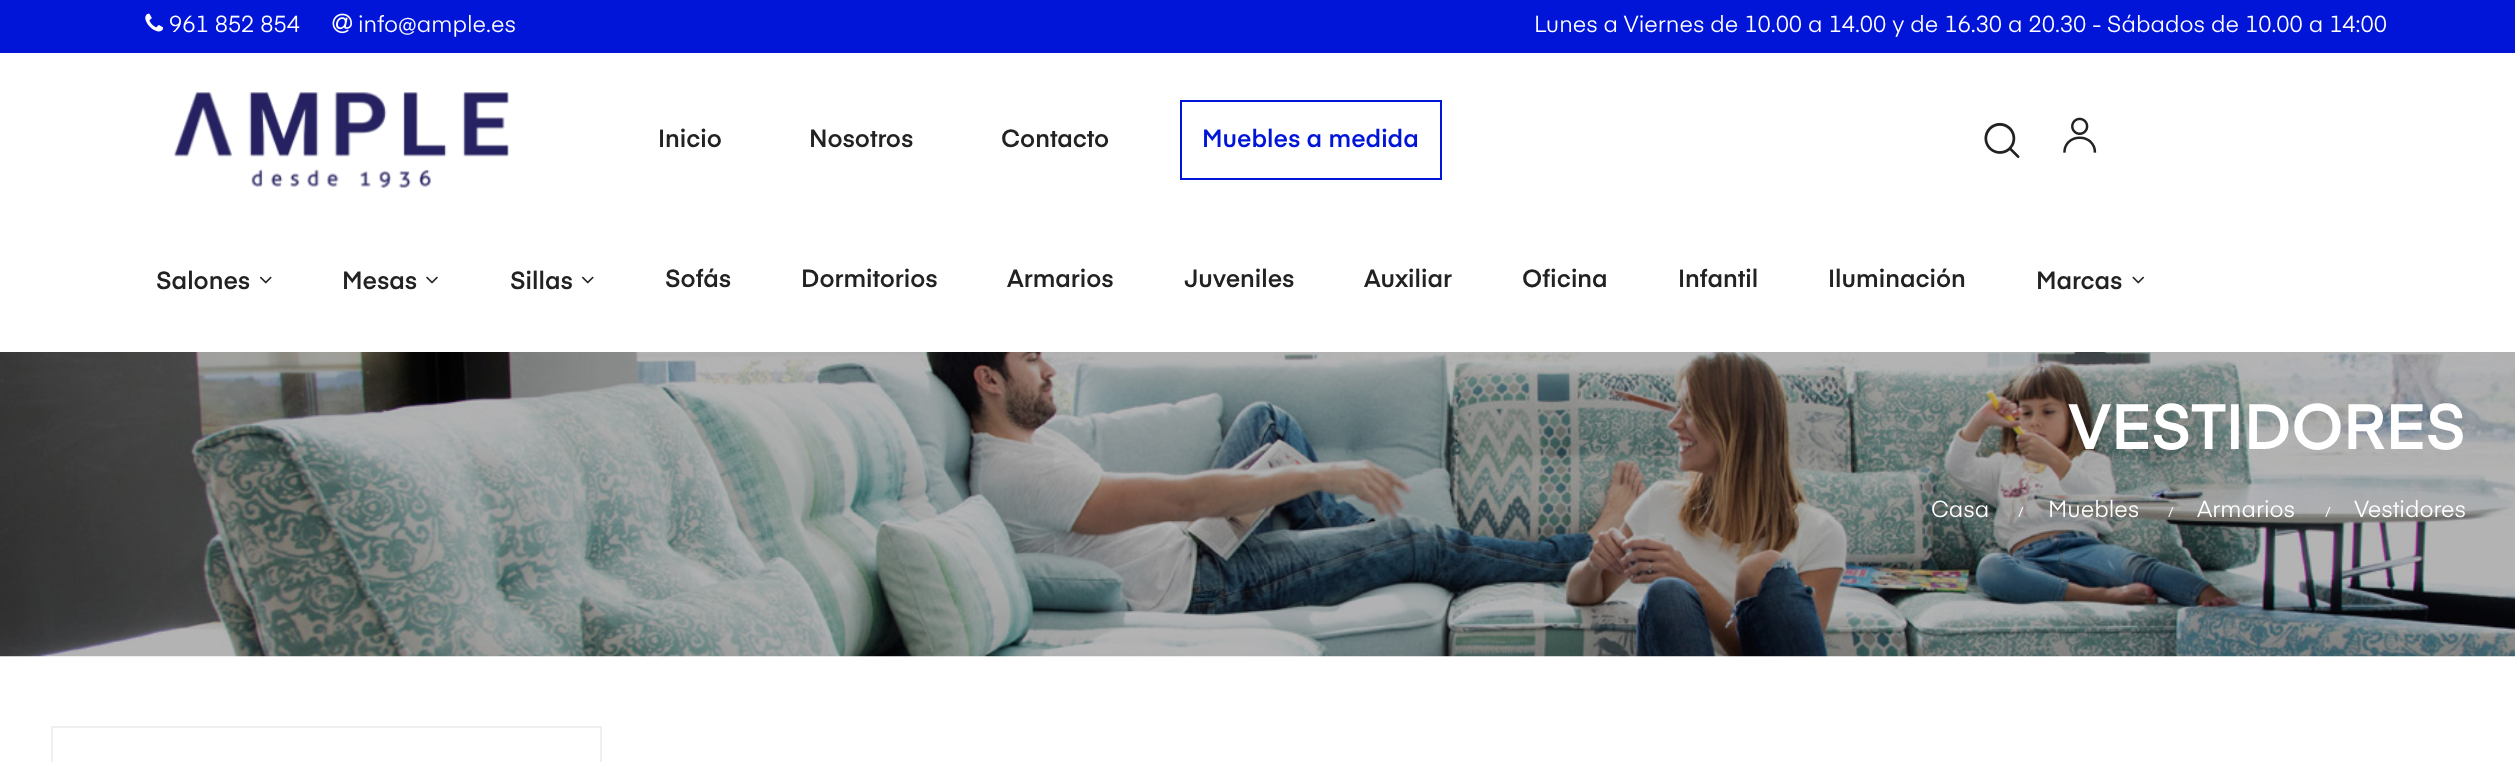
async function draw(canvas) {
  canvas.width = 2515
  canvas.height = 762
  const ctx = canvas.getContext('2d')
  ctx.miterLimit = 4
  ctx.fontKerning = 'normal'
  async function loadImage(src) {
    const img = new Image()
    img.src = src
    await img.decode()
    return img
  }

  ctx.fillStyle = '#fff'
  ctx.fillRect(0, 0, 2515, 762)
  ctx.fillStyle = '#0015d8'
  ctx.fillRect(0, 0, 2515, 53)
  ctx.drawImage(await loadImage('image0.png'), 145, 13, 19, 19)
  ctx.font = '22.75px "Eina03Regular"'
  ctx.fillStyle = '#fff'
  ctx.fillText('961 852 854', 169, 32)
  ctx.drawImage(await loadImage('image1.png'), 332, 13, 20, 21)
  ctx.fillText('info@ample.es', 358, 32)
  ctx.fillText('Lunes a Viernes de 10.00 a 14.00 y de 16.30 a 20.30 - Sábados de 10.00 a 14:00', 1534, 32)
  ctx.drawImage(await loadImage('image2.png'), 174, 92, 335, 96)
  ctx.font = '600 24.5px "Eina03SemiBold"'
  ctx.fillStyle = '#222'
  ctx.fillText('Inicio', 658, 147)
  ctx.fillText('Nosotros', 809, 147)
  ctx.fillText('Contacto', 1001, 147)
  ctx.strokeStyle = '#0015d8'
  ctx.lineWidth = 2
  ctx.strokeRect(1181, 101, 260, 78)
  ctx.fillStyle = '#0015d8'
  ctx.fillText('Muebles a medida', 1202, 147)
  ctx.drawImage(await loadImage('image3.png'), 1984, 122, 36, 36)
  ctx.drawImage(await loadImage('image4.png'), 2063, 117, 34, 36)
  ctx.fillStyle = '#222'
  ctx.fillText('Salones', 156, 289)
  ctx.drawImage(await loadImage('image5.png'), 259, 276, 13, 8)
  ctx.fillText('Mesas', 342, 289)
  ctx.drawImage(await loadImage('image6.png'), 426, 276, 12, 8)
  ctx.fillText('Sillas', 510, 289)
  ctx.drawImage(await loadImage('image5.png'), 581, 276, 13, 8)
  ctx.fillText('Sofás', 665, 287)
  ctx.fillText('Dormitorios', 801, 287)
  ctx.fillText('Armarios', 1007, 287)
  ctx.fillText('Juveniles', 1184, 287)
  ctx.fillText('Auxiliar', 1364, 287)
  ctx.fillText('Oficina', 1522, 287)
  ctx.fillText('Infantil', 1678, 287)
  ctx.fillText('Iluminación', 1828, 287)
  ctx.fillText('Marcas', 2036, 289)
  ctx.drawImage(await loadImage('image7.png'), 2132, 276, 13, 8)
  ctx.drawImage(await loadImage('image8.png'), 0, 352, 2515, 305)
  ctx.font = '600 63px "Eina03SemiBold"'
  ctx.fillStyle = '#fff'
  ctx.fillText('VESTIDORES', 2068, 449)
  ctx.font = '22.75px "Eina03Regular"'
  ctx.fillText('Casa', 1931, 517)
  ctx.font = '14px "Eina03Regular"'
  ctx.fillText('/', 2018, 517)
  ctx.font = '22.75px "Eina03Regular"'
  ctx.fillText('Muebles', 2048, 517)
  ctx.font = '14px "Eina03Regular"'
  ctx.fillText('/', 2168, 517)
  ctx.font = '22.75px "Eina03Regular"'
  ctx.fillText('Armarios', 2197, 517)
  ctx.font = '14px "Eina03Regular"'
  ctx.fillText('/', 2325, 517)
  ctx.font = '22.75px "Eina03Regular"'
  ctx.fillText('Vestidores', 2354, 517)
  ctx.fillStyle = '#efefef'
  ctx.fillRect(51, 726, 551, 2)
  ctx.fillRect(600, 726, 2, 36)
  ctx.fillRect(51, 726, 2, 36)
}

draw(document.querySelector('canvas'))
